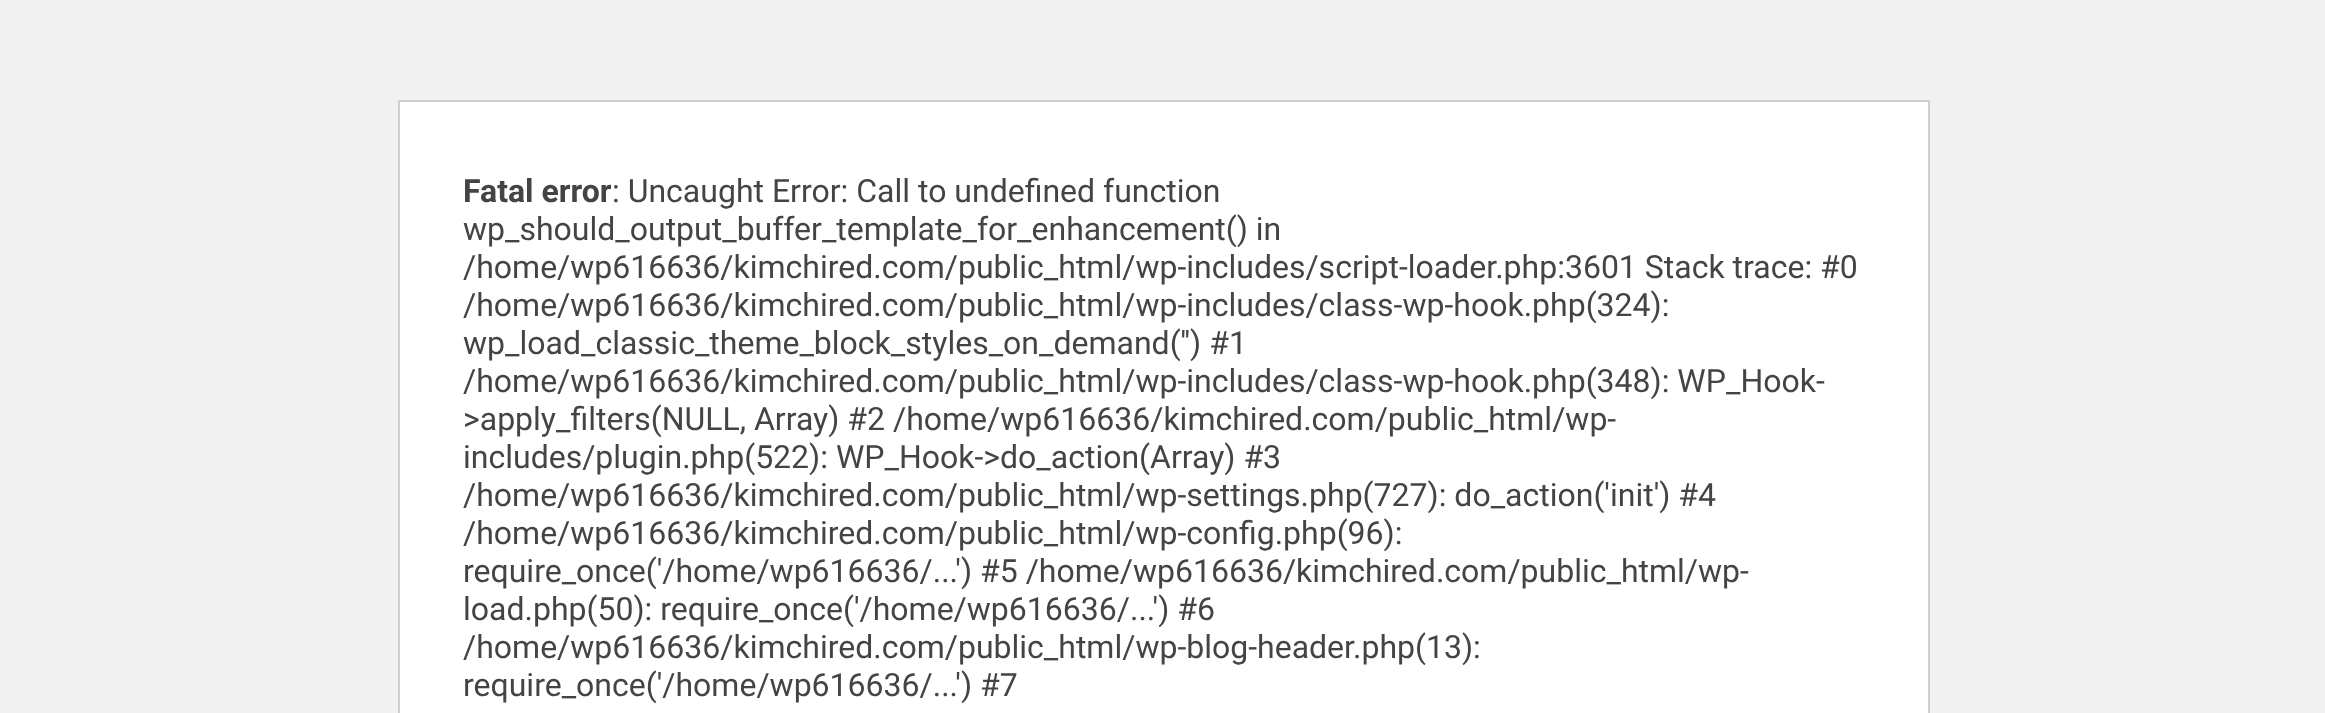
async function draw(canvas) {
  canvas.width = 2325
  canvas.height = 713
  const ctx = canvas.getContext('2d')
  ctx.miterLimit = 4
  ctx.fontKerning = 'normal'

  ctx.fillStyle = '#f1f1f1'
  ctx.fillRect(0, 0, 2325, 713)
  ctx.fillStyle = '#fff'
  ctx.beginPath()
  ctx.rect(399, 101, 1530, 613)
  ctx.fill()
  ctx.strokeStyle = '#ccd0d4'
  ctx.lineWidth = 2
  ctx.stroke()
  ctx.font = 'bold 32px Roboto'
  ctx.fillStyle = '#444'
  ctx.fillText('Fatal error', 463, 202)
  ctx.font = '32px Roboto'
  ctx.fillText(': Uncaught Error: Call to undefined function', 612, 202)
  ctx.fillText('wp_should_output_buffer_template_for_enhancement() in', 463, 240)
  ctx.fillText('/home/wp616636/kimchired.com/public_html/wp-includes/script-loader.php:3601 Stack trace: #0', 463, 278)
  ctx.fillText('/home/wp616636/kimchired.com/public_html/wp-includes/class-wp-hook.php(324):', 463, 316)
  ctx.fillText('wp_load_classic_theme_block_styles_on_demand(\'\') #1', 463, 354)
  ctx.fillText('/home/wp616636/kimchired.com/public_html/wp-includes/class-wp-hook.php(348): WP_Hook-', 463, 392)
  ctx.fillText('>apply_filters(NULL, Array) #2 /home/wp616636/kimchired.com/public_html/wp-', 463, 430)
  ctx.fillText('includes/plugin.php(522): WP_Hook->do_action(Array) #3', 463, 468)
  ctx.fillText('/home/wp616636/kimchired.com/public_html/wp-settings.php(727): do_action(\'init\') #4', 463, 506)
  ctx.fillText('/home/wp616636/kimchired.com/public_html/wp-config.php(96):', 463, 544)
  ctx.fillText('require_once(\'/home/wp616636/...\') #5 /home/wp616636/kimchired.com/public_html/wp-', 463, 582)
  ctx.fillText('load.php(50): require_once(\'/home/wp616636/...\') #6', 463, 620)
  ctx.fillText('/home/wp616636/kimchired.com/public_html/wp-blog-header.php(13):', 463, 658)
  ctx.fillText('require_once(\'/home/wp616636/...\') #7', 463, 696)
}

draw(document.querySelector('canvas'))
